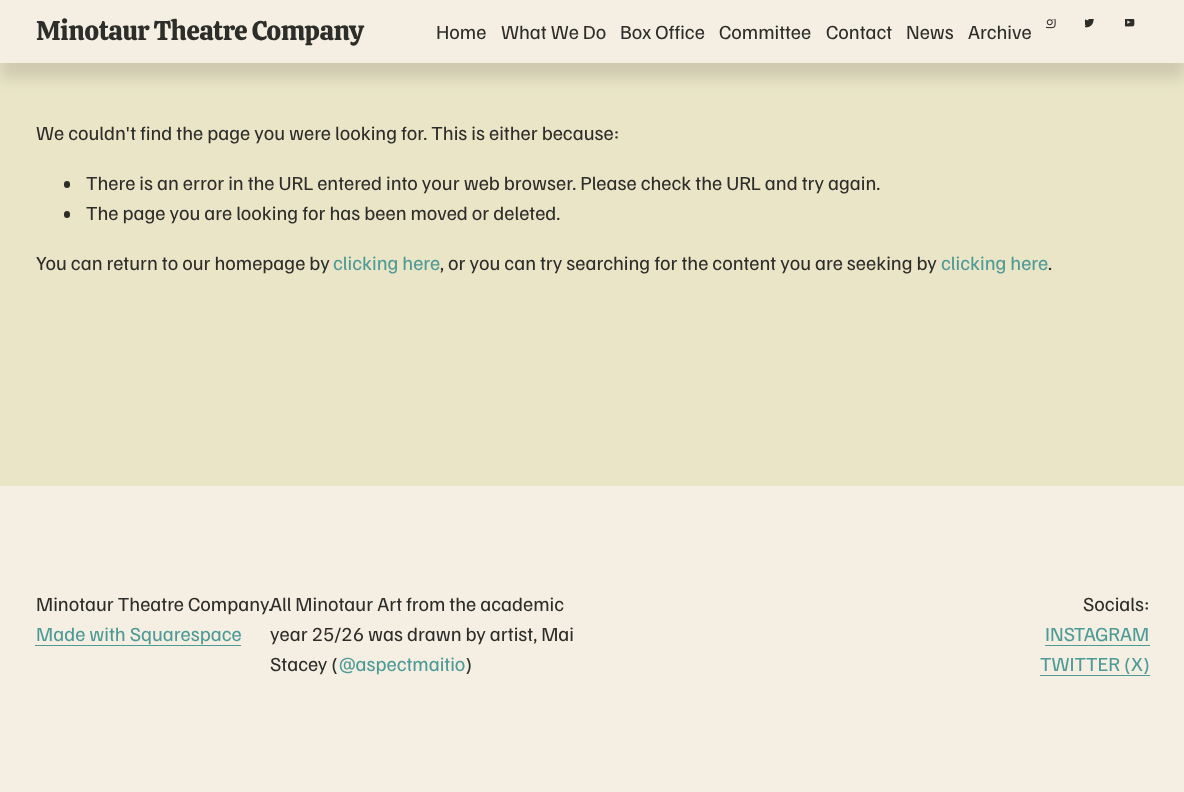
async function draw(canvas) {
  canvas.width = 1184
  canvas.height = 792
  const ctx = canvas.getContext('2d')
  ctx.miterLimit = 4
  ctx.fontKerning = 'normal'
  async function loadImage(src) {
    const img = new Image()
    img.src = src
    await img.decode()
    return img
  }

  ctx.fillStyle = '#eae5c7'
  ctx.fillRect(0, 0, 1184, 792)
  ctx.fillStyle = '#cec9af'
  ctx.filter = 'blur(7.5px)'
  ctx.beginPath()
  ctx.rect(0, 15, 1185, 63)
  ctx.fill()
  ctx.filter = 'none'
  ctx.fillStyle = '#f4efe2'
  ctx.fillRect(0, 0, 1184, 63)
  ctx.letterSpacing = '-0.5px'
  ctx.font = '27.1px Calistoga'
  ctx.fillStyle = '#2d2d2a'
  ctx.fillText('Minotaur Theatre Company', 36, 40)
  ctx.letterSpacing = '0px'
  ctx.font = '20px Familjen Grotesk'
  ctx.fillText('Home', 436, 39)
  ctx.fillText('What We Do', 501, 39)
  ctx.fillText('Box Office', 620, 39)
  ctx.fillText('Committee', 719, 39)
  ctx.fillText('Contact', 826, 39)
  ctx.fillText('News', 906, 39)
  ctx.fillText('Archive', 968, 39)
  ctx.drawImage(await loadImage('image0.png'), 1046, 19, 10, 10)
  ctx.drawImage(await loadImage('image1.png'), 1085, 19, 9, 9)
  ctx.drawImage(await loadImage('image2.png'), 1125, 19, 10, 8)
  ctx.fillText('We couldn\'t find the page you were looking for. This is either because:', 36, 140)
  ctx.beginPath()
  ctx.roundRect(64, 181, 6, 7, 3)
  ctx.fill()
  ctx.fillText('There is an error in the URL entered into your web browser. Please check the URL and try again.', 86, 190)
  ctx.beginPath()
  ctx.roundRect(64, 211, 6, 7, 3)
  ctx.fill()
  ctx.fillText('The page you are looking for has been moved or deleted.', 86, 220)
  ctx.fillText('You can return to our homepage by', 36, 270)
  ctx.fillStyle = '#4d9a96'
  ctx.fillText('clicking here', 333, 270)
  ctx.fillStyle = '#2d2d2a'
  ctx.fillText(', or you can try searching for the content you are seeking by', 440, 270)
  ctx.fillStyle = '#4d9a96'
  ctx.fillText('clicking here', 941, 270)
  ctx.fillStyle = '#2d2d2a'
  ctx.fillText('.', 1048, 270)
  ctx.fillStyle = '#f4efe2'
  ctx.fillRect(0, 486, 1184, 306)
  ctx.fillStyle = '#2d2d2a'
  ctx.fillText('Minotaur Theatre Company.', 36, 611)
  ctx.fillStyle = '#4d9a96'
  ctx.fillText('Made with Squarespace', 36, 641)
  ctx.fillRect(35, 645, 206, 1)
  ctx.fillStyle = '#2d2d2a'
  ctx.fillText('All Minotaur Art from the academic', 270, 611)
  ctx.fillText('year 25/26 was drawn by artist, Mai', 270, 641)
  ctx.fillText('Stacey (', 270, 671)
  ctx.fillStyle = '#4d9a96'
  ctx.fillText('@aspectmaitio', 339, 671)
  ctx.fillStyle = '#2d2d2a'
  ctx.fillText(')', 465, 671)
  ctx.fillText('Socials:', 1083, 611)
  ctx.fillStyle = '#4d9a96'
  ctx.fillText('INSTAGRAM', 1045, 641)
  ctx.fillRect(1045, 645, 105, 1)
  ctx.fillText('TWITTER (X)', 1040, 671)
  ctx.fillRect(1040, 675, 110, 1)
}

draw(document.querySelector('canvas'))
